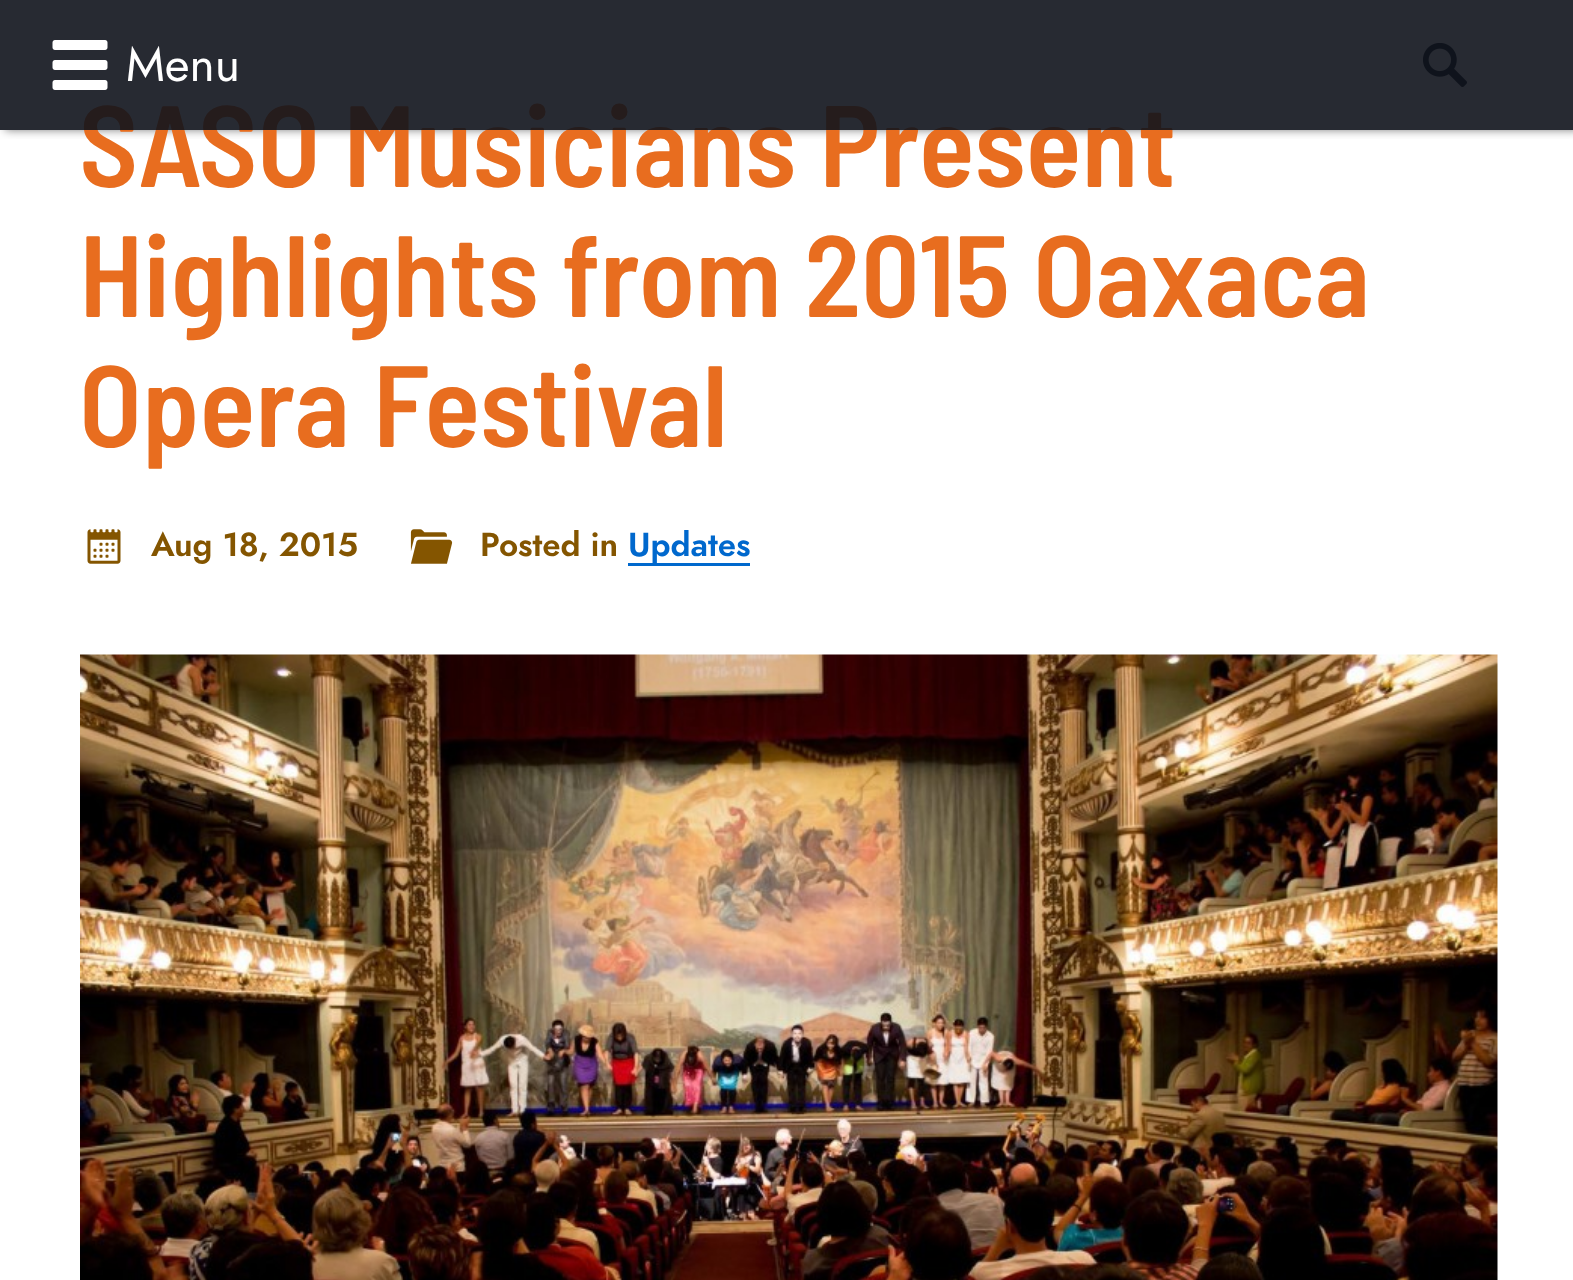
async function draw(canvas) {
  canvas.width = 1573
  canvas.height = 1280
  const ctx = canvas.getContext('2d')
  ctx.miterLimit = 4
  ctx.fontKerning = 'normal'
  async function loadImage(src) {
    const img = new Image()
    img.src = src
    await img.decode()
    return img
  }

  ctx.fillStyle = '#fff'
  ctx.fillRect(0, 0, 1573, 1280)
  ctx.save()
  ctx.beginPath()
  ctx.rect(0, 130, 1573, 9)
  ctx.clip()
  ctx.fillStyle = '#00000080'
  ctx.filter = 'blur(5px)'
  ctx.beginPath()
  ctx.rect(5, 0, 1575, 130)
  ctx.fill()
  ctx.filter = 'none'
  ctx.restore()
  ctx.font = '600 115.5px Barlow Semi Condensed'
  ctx.fillStyle = '#e86d1f'
  ctx.fillText('SASO Musicians Present', 79, 187)
  ctx.fillStyle = '#0f131ce6'
  ctx.fillRect(0, 0, 1573, 130)
  ctx.drawImage(await loadImage('image0.png'), 52, 40, 56, 50)
  ctx.font = '48px Jost'
  ctx.fillStyle = '#fff'
  ctx.fillText('Menu', 126, 81)
  ctx.drawImage(await loadImage('image1.png'), 1423, 43, 44, 44)
  ctx.font = '600 115.5px Barlow Semi Condensed'
  ctx.fillStyle = '#e86d1f'
  ctx.fillText('Highlights from 2015 Oaxaca', 79, 317)
  ctx.fillText('Opera Festival', 79, 447)
  ctx.drawImage(await loadImage('image2.png'), 87, 529, 34, 35)
  ctx.font = '600 33.25px Jost'
  ctx.fillStyle = '#845500'
  ctx.fillText('Aug 18, 2015', 151, 556)
  ctx.drawImage(await loadImage('image3.png'), 410, 529, 43, 35)
  ctx.fillText('Posted in', 480, 556)
  ctx.fillStyle = '#0068cd'
  ctx.fillRect(628, 563, 122, 3)
  ctx.fillText('Updates', 628, 556)
  ctx.drawImage(await loadImage('image4.png'), 80, 654, 1418, 626)
}

draw(document.querySelector('canvas'))
